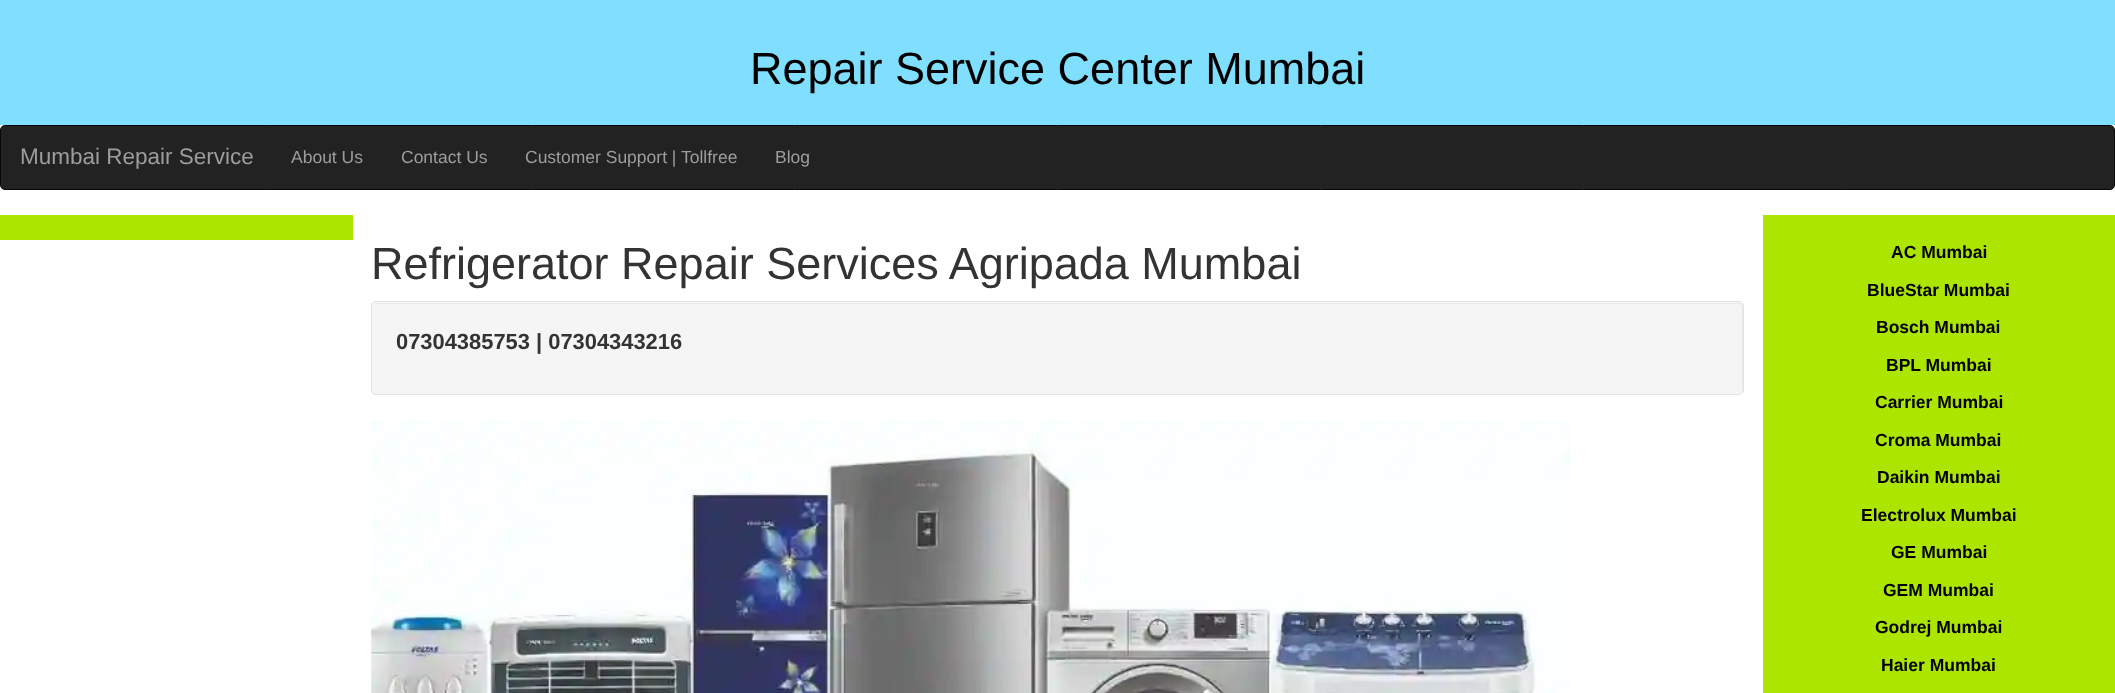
async function draw(canvas) {
  canvas.width = 2115
  canvas.height = 693
  const ctx = canvas.getContext('2d')
  ctx.miterLimit = 4
  ctx.fontKerning = 'normal'
  async function loadImage(src) {
    const img = new Image()
    img.src = src
    await img.decode()
    return img
  }

  ctx.fillStyle = '#fff'
  ctx.fillRect(0, 0, 2115, 693)
  ctx.fillStyle = '#80dfff'
  ctx.fillRect(0, 0, 2115, 125)
  ctx.font = '45px Liberation Sans'
  ctx.fillStyle = '#000'
  ctx.fillText('Repair Service Center Mumbai', 750, 84)
  ctx.fillStyle = '#222'
  ctx.beginPath()
  ctx.roundRect(0.5, 125.5, 2114, 64, 4.5)
  ctx.fill()
  ctx.strokeStyle = '#080808'
  ctx.stroke()
  ctx.font = '22.5px Liberation Sans'
  ctx.fillStyle = '#9d9d9d'
  ctx.fillText('Mumbai Repair Service', 20, 164)
  ctx.font = '17.5px Liberation Sans'
  ctx.fillText('About Us', 291, 163)
  ctx.fillText('Contact Us', 401, 163)
  ctx.fillText('Customer Support | Tollfree', 525, 163)
  ctx.fillText('Blog', 775, 163)
  ctx.fillStyle = '#ace600'
  ctx.fillRect(0, 215, 353, 25)
  ctx.font = '45px Liberation Sans'
  ctx.fillStyle = '#333'
  ctx.fillText('Refrigerator Repair Services Agripada Mumbai', 371, 279)
  ctx.fillStyle = '#f5f5f5'
  ctx.beginPath()
  ctx.roundRect(371, 301, 1373, 94, 5)
  ctx.fill()
  ctx.fillStyle = '#e9e9e9'
  ctx.beginPath()
  ctx.moveTo(376, 304)
  ctx.lineTo(1739, 304)
  ctx.bezierCurveTo(1741, 304, 1742, 305, 1742, 308)
  ctx.lineTo(1742, 391)
  ctx.lineTo(1742, 393)
  ctx.bezierCurveTo(1742, 392, 1743, 391, 1743, 390)
  ctx.lineTo(1743, 307)
  ctx.bezierCurveTo(1743, 305, 1741, 303, 1739, 303)
  ctx.lineTo(377, 303)
  ctx.bezierCurveTo(376, 303, 375, 304, 374, 304)
  ctx.closePath()
  ctx.fill()
  ctx.beginPath()
  ctx.roundRect(371.5, 301.5, 1372, 93, 4.5)
  ctx.strokeStyle = '#e3e3e3'
  ctx.stroke()
  ctx.font = 'bold 21.9px Liberation Sans'
  ctx.fillStyle = '#333'
  ctx.fillText('07304385753 | 07304343216', 396, 349)
  ctx.drawImage(await loadImage('image0.png'), 371, 420, 1200, 273)
  ctx.fillStyle = '#ace600'
  ctx.fillRect(1763, 215, 352, 478)
  ctx.font = 'bold 17.5px Liberation Sans'
  ctx.fillStyle = '#000'
  ctx.fillText('AC Mumbai', 1891, 258)
  ctx.fillText('BlueStar Mumbai', 1867, 296)
  ctx.fillText('Bosch Mumbai', 1876, 333)
  ctx.fillText('BPL Mumbai', 1886, 371)
  ctx.fillText('Carrier Mumbai', 1875, 408)
  ctx.fillText('Croma Mumbai', 1875, 446)
  ctx.fillText('Daikin Mumbai', 1877, 483)
  ctx.fillText('Electrolux Mumbai', 1861, 521)
  ctx.fillText('GE Mumbai', 1891, 558)
  ctx.fillText('GEM Mumbai', 1883, 596)
  ctx.fillText('Godrej Mumbai', 1875, 633)
  ctx.fillText('Haier Mumbai', 1881, 671)
}

draw(document.querySelector('canvas'))
